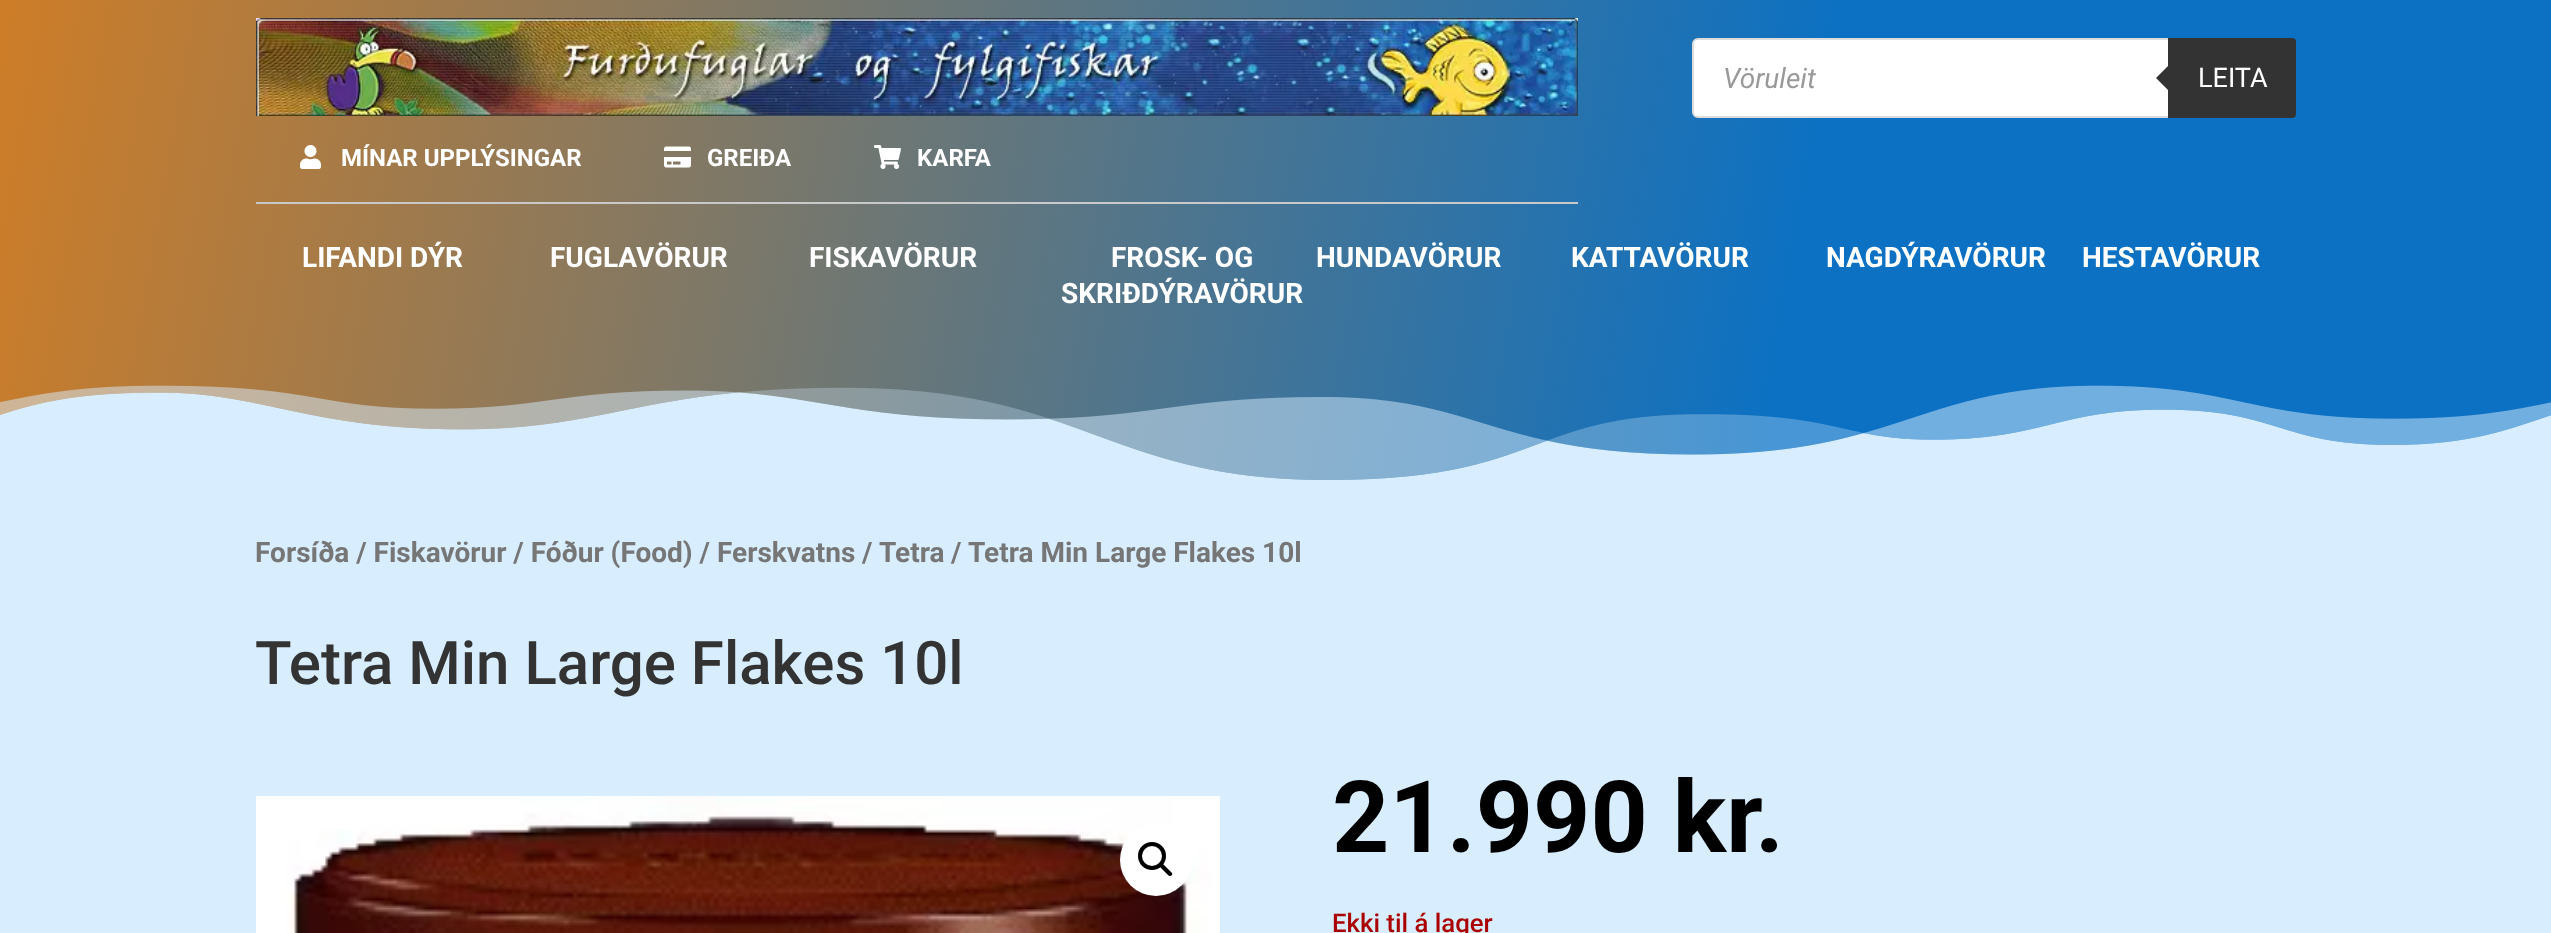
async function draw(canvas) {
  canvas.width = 2551
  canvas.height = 933
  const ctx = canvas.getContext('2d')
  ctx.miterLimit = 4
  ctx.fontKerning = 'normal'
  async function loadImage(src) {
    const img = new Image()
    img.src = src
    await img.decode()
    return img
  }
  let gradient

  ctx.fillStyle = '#d8edfe'
  ctx.fillRect(0, 0, 2551, 933)
  gradient = ctx.createLinearGradient(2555, 465, -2.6, 15)
  gradient.addColorStop(0.3, '#0c71c3')
  gradient.addColorStop(1, '#ce7d27')
  ctx.fillStyle = gradient
  ctx.fillRect(0, 0, 2551, 480)
  ctx.fillStyle = '#fff'
  ctx.beginPath()
  ctx.roundRect(1693, 39, 602, 78, 5)
  ctx.fill()
  ctx.strokeStyle = '#ddd'
  ctx.lineWidth = 2
  ctx.stroke()
  ctx.font = 'italic 28px Roboto'
  ctx.fillStyle = '#999'
  ctx.fillText('Vöruleit', 1723, 88)
  ctx.fillStyle = '#333'
  ctx.beginPath()
  ctx.roundRect(2168, 38, 128, 80, [0, 4, 4, 0])
  ctx.fill()
  ctx.beginPath()
  ctx.moveTo(2172, 62)
  ctx.lineTo(2172, 94)
  ctx.lineTo(2156, 78)
  ctx.closePath()
  ctx.fill()
  ctx.font = '27px Roboto'
  ctx.fillStyle = '#fff'
  ctx.fillText('LEITA', 2198, 87)
  ctx.drawImage(await loadImage('image0.png'), 256, 18, 1322, 98)
  ctx.drawImage(await loadImage('image1.png'), 300, 145, 21, 24)
  ctx.font = 'bold 24px Roboto'
  ctx.fillText('MÍNAR UPPLÝSINGAR', 341, 166)
  ctx.drawImage(await loadImage('image2.png'), 664, 146, 27, 22)
  ctx.fillText('GREIÐA', 707, 166)
  ctx.drawImage(await loadImage('image3.png'), 874, 145, 27, 24)
  ctx.fillText('KARFA', 917, 166)
  ctx.fillStyle = '#c9c9c9'
  ctx.fillRect(256, 202, 1322, 2)
  ctx.font = 'bold 28px Roboto'
  ctx.fillStyle = '#fff'
  ctx.fillText('LIFANDI DÝR', 302, 267)
  ctx.fillText('FUGLAVÖRUR', 550, 267)
  ctx.fillText('FISKAVÖRUR', 809, 267)
  ctx.fillText('FROSK- OG', 1111, 267)
  ctx.fillText('SKRIÐDÝRAVÖRUR', 1061, 303)
  ctx.fillText('HUNDAVÖRUR', 1316, 267)
  ctx.fillText('KATTAVÖRUR', 1571, 267)
  ctx.fillText('NAGDÝRAVÖRUR', 1826, 267)
  ctx.fillText('HESTAVÖRUR', 2082, 267)
  ctx.drawImage(await loadImage('image4.png'), 0, 385, 2551, 95)
  ctx.fillStyle = '#767676'
  ctx.fillText('Forsíða / Fiskavörur / Fóður (Food) / Ferskvatns', 255, 562)
  ctx.fillText('/', 862, 562)
  ctx.fillText('Tetra', 879, 562)
  ctx.fillText('/', 951, 562)
  ctx.fillText('Tetra Min Large Flakes 10l', 968, 562)
  ctx.font = '500 60px Roboto'
  ctx.fillStyle = '#333'
  ctx.fillText('Tetra Min Large Flakes 10l', 255, 684)
  ctx.drawImage(await loadImage('image5.png'), 256, 796, 964, 137)
  ctx.fillStyle = '#fff'
  ctx.beginPath()
  ctx.arc(1156, 860, 36, 0, 2 * Math.PI)
  ctx.fill()
  ctx.beginPath()
  ctx.arc(1152, 856, 12, 0, 2 * Math.PI)
  ctx.strokeStyle = '#000'
  ctx.lineWidth = 4
  ctx.stroke()
  ctx.fillStyle = '#000'
  ctx.beginPath()
  ctx.moveTo(1160, 864)
  ctx.bezierCurveTo(1161, 863.5, 1162, 863.5, 1163, 864)
  ctx.lineTo(1171.5, 872.5)
  ctx.bezierCurveTo(1172.5, 873.5, 1172.5, 874.5, 1171.5, 875.5)
  ctx.bezierCurveTo(1170.5, 876, 1169.5, 876, 1168.5, 875.5)
  ctx.lineTo(1160, 867)
  ctx.bezierCurveTo(1159.5, 866, 1159.5, 865, 1160, 864)
  ctx.closePath()
  ctx.fill()
  ctx.font = 'bold 100px Roboto'
  ctx.fillText('21.990 kr.', 1332, 852)
  ctx.font = '500 25.75px Roboto'
  ctx.fillStyle = '#a00'
  ctx.fillText('Ekki til á lager', 1332, 932)
}

draw(document.querySelector('canvas'))
